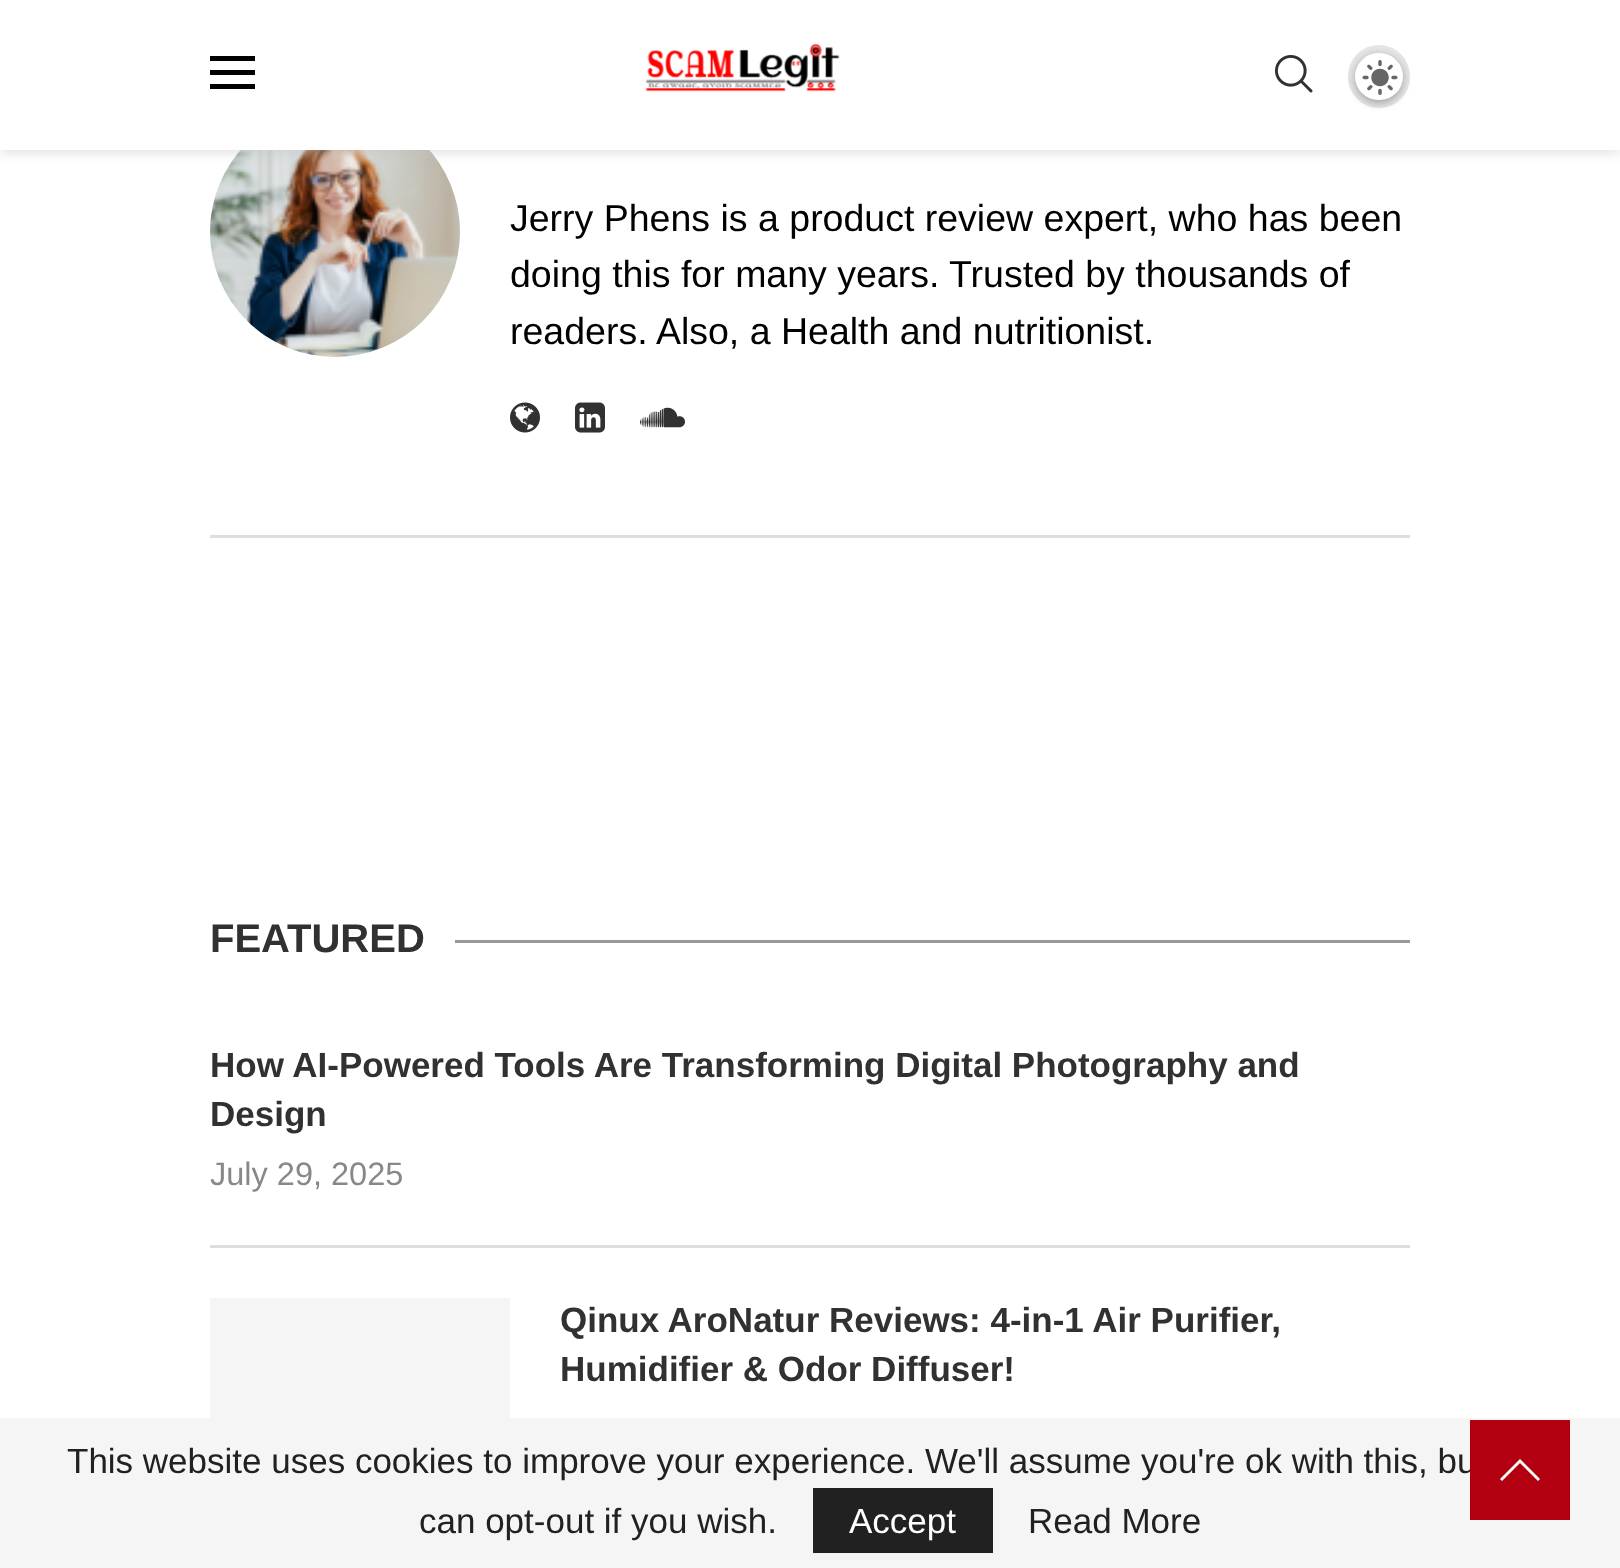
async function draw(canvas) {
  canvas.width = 1620
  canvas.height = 1568
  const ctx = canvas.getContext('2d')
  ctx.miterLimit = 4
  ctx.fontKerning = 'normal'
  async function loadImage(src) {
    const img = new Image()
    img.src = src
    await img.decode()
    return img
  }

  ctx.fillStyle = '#fff'
  ctx.fillRect(0, 0, 1620, 1568)
  ctx.drawImage(await loadImage('image3.png'), 210, 150, 250, 207)
  ctx.fillStyle = '#bebebe75'
  ctx.filter = 'blur(6px)'
  ctx.beginPath()
  ctx.rect(0, 3, 1620, 150)
  ctx.fill()
  ctx.filter = 'none'
  ctx.fillStyle = '#fff'
  ctx.fillRect(0, 0, 1620, 150)
  ctx.fillStyle = '#000'
  ctx.fillRect(210, 56, 45, 5)
  ctx.fillRect(210, 70, 45, 5)
  ctx.fillRect(210, 84, 45, 5)
  ctx.drawImage(await loadImage('image0.png'), 645, 43, 195, 49)
  ctx.drawImage(await loadImage('image1.png'), 1275, 55, 38, 38)
  ctx.fillStyle = '#e6e6e6'
  ctx.beginPath()
  ctx.roundRect(1348, 45, 62, 63, 31)
  ctx.fill()
  ctx.fillStyle = '#0000004d'
  ctx.filter = 'blur(4px)'
  ctx.beginPath()
  ctx.roundRect(1355, 55, 48, 48, 24)
  ctx.fill()
  ctx.filter = 'none'
  ctx.fillStyle = '#fff'
  ctx.beginPath()
  ctx.roundRect(1355, 53, 48, 47, 23.5)
  ctx.fill()
  ctx.drawImage(await loadImage('image2.png'), 1362, 60, 36, 35)
  ctx.font = '37.5px Liberation Sans'
  ctx.fillStyle = '#000'
  ctx.fillText('Jerry Phens is a product review expert, who has been', 510, 231)
  ctx.fillText('doing this for many years. Trusted by thousands of', 510, 287)
  ctx.fillText('readers. Also, a Health and nutritionist.', 510, 344)
  ctx.drawImage(await loadImage('image4.png'), 510, 402, 30, 31)
  ctx.drawImage(await loadImage('image5.png'), 575, 402, 30, 31)
  ctx.drawImage(await loadImage('image6.png'), 640, 407, 45, 21)
  ctx.fillStyle = '#dedede'
  ctx.fillRect(210, 535, 1200, 3)
  ctx.font = 'bold 40px Liberation Sans'
  ctx.fillStyle = '#313131'
  ctx.fillText('FEATURED', 210, 952)
  ctx.fillStyle = '#989898'
  ctx.fillRect(455, 940, 955, 3)
  ctx.fillStyle = '#dedede'
  ctx.fillRect(210, 1245, 1200, 3)
  ctx.font = 'bold 35px Liberation Sans'
  ctx.fillStyle = '#313131'
  ctx.fillText('How AI-Powered Tools Are Transforming Digital Photography and', 210, 1077)
  ctx.fillText('Design', 210, 1126)
  ctx.font = '32.5px Liberation Sans'
  ctx.fillStyle = '#888'
  ctx.fillText('July 29, 2025', 210, 1185)
  ctx.fillStyle = '#f5f5f5'
  ctx.fillRect(210, 1298, 300, 120)
  ctx.font = 'bold 35px Liberation Sans'
  ctx.fillStyle = '#313131'
  ctx.fillText('Qinux AroNatur Reviews: 4-in-1 Air Purifier,', 560, 1332)
  ctx.fillText('Humidifier & Odor Diffuser!', 560, 1381)
  ctx.fillStyle = '#f5f5f5'
  ctx.fillRect(0, 1418, 1620, 150)
  ctx.font = '35px Liberation Sans'
  ctx.fillStyle = '#212121'
  ctx.fillText('This website uses cookies to improve your experience. We\'ll assume you\'re ok with this, bu', 67, 1473)
  ctx.fillText('can opt-out if you wish.', 419, 1533)
  ctx.fillRect(813, 1488, 180, 65)
  ctx.fillStyle = '#fff'
  ctx.fillText('Accept', 849, 1533)
  ctx.fillStyle = '#212121'
  ctx.fillText('Read More', 1028, 1533)
  ctx.fillStyle = '#b30010'
  ctx.fillRect(1470, 1420, 100, 100)
  ctx.fillStyle = '#fff'
  ctx.beginPath()
  ctx.moveTo(1520, 1459)
  ctx.lineTo(1500, 1479)
  ctx.lineTo(1502, 1481)
  ctx.lineTo(1520, 1463)
  ctx.lineTo(1538, 1481)
  ctx.lineTo(1540, 1479)
  ctx.closePath()
  ctx.fill()
}

draw(document.querySelector('canvas'))
